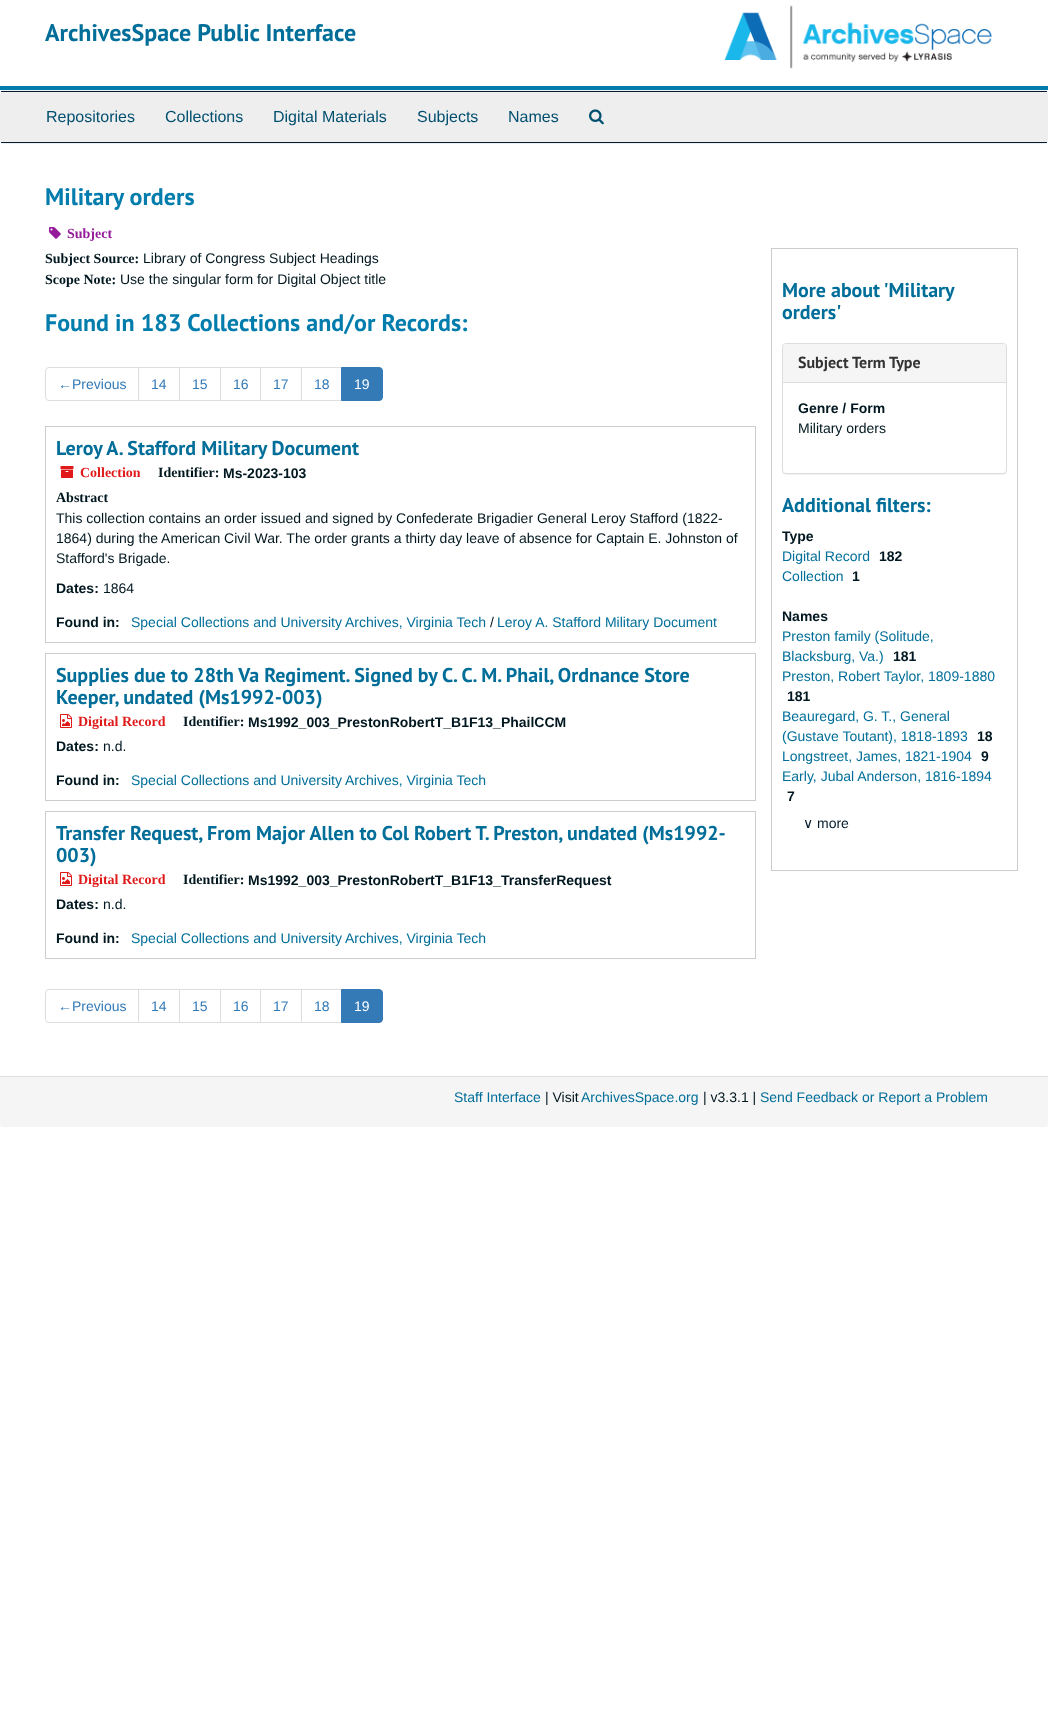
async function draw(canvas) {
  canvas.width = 1048
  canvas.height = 1722
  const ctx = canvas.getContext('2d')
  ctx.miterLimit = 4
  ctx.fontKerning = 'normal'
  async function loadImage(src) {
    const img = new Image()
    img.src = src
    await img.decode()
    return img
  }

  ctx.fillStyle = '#fff'
  ctx.fillRect(0, 0, 1048, 1722)
  ctx.fillStyle = '#007cad'
  ctx.fillRect(0, 86, 1048, 4)
  ctx.font = 'bold 24px PT Sans'
  ctx.fillStyle = '#006e99'
  ctx.fillText('ArchivesSpace Public Interface', 45, 41)
  ctx.drawImage(await loadImage('image0.png'), 724, 5, 268, 64)
  ctx.fillStyle = '#eee'
  ctx.beginPath()
  ctx.roundRect(0.5, 90.5, 1047, 53, 3.5)
  ctx.fill()
  ctx.strokeStyle = '#eee'
  ctx.stroke()
  ctx.fillStyle = '#041c2f'
  ctx.fillRect(1, 91, 1046, 1)
  ctx.fillRect(1, 142, 1046, 1)
  ctx.font = '16px Liberation Sans'
  ctx.fillStyle = '#004f6f'
  ctx.fillText('Repositories', 46, 122)
  ctx.fillText('Collections', 165, 122)
  ctx.fillText('Digital Materials', 273, 122)
  ctx.fillText('Subjects', 417, 122)
  ctx.fillText('Names', 508, 122)
  ctx.drawImage(await loadImage('image1.png'), 589, 109, 15, 16)
  ctx.font = 'bold 24px PT Sans'
  ctx.fillStyle = '#007cad'
  ctx.fillText('Military orders', 45, 205)
  ctx.drawImage(await loadImage('image2.png'), 49, 227, 12, 12)
  ctx.font = 'bold 14px Liberation Serif'
  ctx.fillStyle = '#941c9a'
  ctx.fillText('Subject', 67, 238)
  ctx.fillStyle = '#00171f'
  ctx.fillText('Subject Source:', 45, 263)
  ctx.font = '14px Liberation Sans'
  ctx.fillText('Library of Congress Subject Headings', 143, 263)
  ctx.font = 'bold 14px Liberation Serif'
  ctx.fillText('Scope Note:', 45, 284)
  ctx.font = '14px Liberation Sans'
  ctx.fillText('Use the singular form for Digital Object title', 120, 284)
  ctx.font = 'bold 24px PT Sans'
  ctx.fillStyle = '#007cad'
  ctx.fillText('Found in 183 Collections and/or Records:', 45, 331)
  ctx.beginPath()
  ctx.roundRect(45.5, 367.5, 93, 33, [3.5, 0, 0, 3.5])
  ctx.strokeStyle = '#ddd'
  ctx.stroke()
  ctx.font = '14px Liberation Sans'
  ctx.fillStyle = '#337ab7'
  ctx.fillText('←Previous', 58, 389)
  ctx.strokeRect(138.5, 367.5, 41, 33)
  ctx.fillText('14', 151, 389)
  ctx.strokeRect(179.5, 367.5, 41, 33)
  ctx.fillText('15', 192, 389)
  ctx.strokeRect(220.5, 367.5, 40, 33)
  ctx.fillText('16', 233, 389)
  ctx.strokeRect(260.5, 367.5, 41, 33)
  ctx.fillText('17', 273, 389)
  ctx.strokeRect(301.5, 367.5, 40, 33)
  ctx.fillText('18', 314, 389)
  ctx.beginPath()
  ctx.roundRect(341.5, 367.5, 41, 33, [0, 3.5, 3.5, 0])
  ctx.fill()
  ctx.strokeStyle = '#337ab7'
  ctx.stroke()
  ctx.fillStyle = '#fff'
  ctx.fillText('19', 354, 389)
  ctx.strokeStyle = '#ccc'
  ctx.strokeRect(45.5, 426.5, 710, 216)
  ctx.font = 'bold 20px PT Sans'
  ctx.fillStyle = '#006e99'
  ctx.fillText('Leroy A. Stafford Military Document', 56, 455)
  ctx.drawImage(await loadImage('image3.png'), 60, 466, 14, 12)
  ctx.font = 'bold 14px Liberation Serif'
  ctx.fillStyle = '#e01919'
  ctx.fillText('Collection', 80, 477)
  ctx.fillStyle = '#00171f'
  ctx.fillText('Identifier:', 158, 477)
  ctx.font = 'bold 14px Liberation Sans'
  ctx.fillText('Ms-2023-103', 223, 478)
  ctx.font = 'bold 14px Liberation Serif'
  ctx.fillText('Abstract', 56, 502)
  ctx.font = '14px Liberation Sans'
  ctx.fillText('This collection contains an order issued and signed by Confederate Brigadier General Leroy Stafford (1822-', 56, 523)
  ctx.fillText('1864) during the American Civil War. The order grants a thirty day leave of absence for Captain E. Johnston of', 56, 543)
  ctx.fillText('Stafford\'s Brigade.', 56, 563)
  ctx.font = 'bold 14px Liberation Sans'
  ctx.fillText('Dates:', 56, 593)
  ctx.font = '14px Liberation Sans'
  ctx.fillText('1864', 103, 593)
  ctx.font = 'bold 14px Liberation Sans'
  ctx.fillText('Found in:', 56, 627)
  ctx.font = '14px Liberation Sans'
  ctx.fillStyle = '#006e99'
  ctx.fillText('Special Collections and University Archives, Virginia Tech', 131, 627)
  ctx.fillStyle = '#00171f'
  ctx.fillText('/', 490, 627)
  ctx.fillStyle = '#006e99'
  ctx.fillText('Leroy A. Stafford Military Document', 497, 627)
  ctx.strokeRect(45.5, 653.5, 710, 147)
  ctx.font = 'bold 20px PT Sans'
  ctx.fillText('Supplies due to 28th Va Regiment. Signed by C. C. M. Phail, Ordnance Store', 56, 682)
  ctx.fillText('Keeper, undated (Ms1992-003)', 56, 704)
  ctx.drawImage(await loadImage('image4.png'), 60, 714, 12, 14)
  ctx.font = 'bold 14px Liberation Serif'
  ctx.fillStyle = '#e01919'
  ctx.fillText('Digital Record', 78, 726)
  ctx.fillStyle = '#00171f'
  ctx.fillText('Identifier:', 183, 726)
  ctx.font = 'bold 14px Liberation Sans'
  ctx.fillText('Ms1992_003_PrestonRobertT_B1F13_PhailCCM', 248, 727)
  ctx.fillText('Dates:', 56, 751)
  ctx.font = '14px Liberation Sans'
  ctx.fillText('n.d.', 103, 751)
  ctx.font = 'bold 14px Liberation Sans'
  ctx.fillText('Found in:', 56, 785)
  ctx.font = '14px Liberation Sans'
  ctx.fillStyle = '#006e99'
  ctx.fillText('Special Collections and University Archives, Virginia Tech', 131, 785)
  ctx.strokeRect(45.5, 811.5, 710, 147)
  ctx.font = 'bold 20px PT Sans'
  ctx.fillText('Transfer Request, From Major Allen to Col Robert T. Preston, undated (Ms1992-', 56, 840)
  ctx.fillText('003)', 56, 862)
  ctx.drawImage(await loadImage('image4.png'), 60, 872, 12, 14)
  ctx.font = 'bold 14px Liberation Serif'
  ctx.fillStyle = '#e01919'
  ctx.fillText('Digital Record', 78, 884)
  ctx.fillStyle = '#00171f'
  ctx.fillText('Identifier:', 183, 884)
  ctx.font = 'bold 14px Liberation Sans'
  ctx.fillText('Ms1992_003_PrestonRobertT_B1F13_TransferRequest', 248, 885)
  ctx.fillText('Dates:', 56, 909)
  ctx.font = '14px Liberation Sans'
  ctx.fillText('n.d.', 103, 909)
  ctx.font = 'bold 14px Liberation Sans'
  ctx.fillText('Found in:', 56, 943)
  ctx.font = '14px Liberation Sans'
  ctx.fillStyle = '#006e99'
  ctx.fillText('Special Collections and University Archives, Virginia Tech', 131, 943)
  ctx.beginPath()
  ctx.roundRect(45.5, 989.5, 93, 33, [3.5, 0, 0, 3.5])
  ctx.strokeStyle = '#ddd'
  ctx.stroke()
  ctx.fillStyle = '#337ab7'
  ctx.fillText('←Previous', 58, 1011)
  ctx.strokeRect(138.5, 989.5, 41, 33)
  ctx.fillText('14', 151, 1011)
  ctx.strokeRect(179.5, 989.5, 41, 33)
  ctx.fillText('15', 192, 1011)
  ctx.strokeRect(220.5, 989.5, 40, 33)
  ctx.fillText('16', 233, 1011)
  ctx.strokeRect(260.5, 989.5, 41, 33)
  ctx.fillText('17', 273, 1011)
  ctx.strokeRect(301.5, 989.5, 40, 33)
  ctx.fillText('18', 314, 1011)
  ctx.beginPath()
  ctx.roundRect(341.5, 989.5, 41, 33, [0, 3.5, 3.5, 0])
  ctx.fill()
  ctx.strokeStyle = '#337ab7'
  ctx.stroke()
  ctx.fillStyle = '#fff'
  ctx.fillText('19', 354, 1011)
  ctx.strokeStyle = '#ccc'
  ctx.strokeRect(771.5, 248.5, 246, 622)
  ctx.font = 'bold 20px PT Sans'
  ctx.fillStyle = '#006e99'
  ctx.fillText('More about \'Military', 782, 297)
  ctx.fillText('orders\'', 782, 319)
  ctx.fillStyle = '#0000000d'
  ctx.filter = 'blur(0.5px)'
  ctx.beginPath()
  ctx.roundRect(782, 344, 225, 131, 4)
  ctx.fill()
  ctx.filter = 'none'
  ctx.fillStyle = '#fff'
  ctx.beginPath()
  ctx.roundRect(782.5, 343.5, 224, 130, 3.5)
  ctx.fill()
  ctx.strokeStyle = '#ddd'
  ctx.stroke()
  ctx.fillStyle = '#f5f5f5'
  ctx.beginPath()
  ctx.roundRect(783, 344, 223, 38, [3, 3, 0, 0])
  ctx.fill()
  ctx.font = 'bold 16px PT Sans'
  ctx.fillStyle = '#333'
  ctx.fillText('Subject Term Type', 798, 368)
  ctx.fillStyle = '#ddd'
  ctx.fillRect(783, 382, 223, 1)
  ctx.font = 'bold 14px Liberation Sans'
  ctx.fillStyle = '#00171f'
  ctx.fillText('Genre / Form', 798, 413)
  ctx.font = '14px Liberation Sans'
  ctx.fillText('Military orders', 798, 433)
  ctx.font = 'bold 20px PT Sans'
  ctx.fillStyle = '#006e99'
  ctx.fillText('Additional filters:', 782, 512)
  ctx.font = 'bold 14px Liberation Sans'
  ctx.fillStyle = '#00171f'
  ctx.fillText('Type', 782, 541)
  ctx.font = '14px Liberation Sans'
  ctx.fillStyle = '#006e99'
  ctx.fillText('Digital Record', 782, 561)
  ctx.font = 'bold 14px Liberation Sans'
  ctx.fillStyle = '#00171f'
  ctx.fillText('182', 879, 561)
  ctx.font = '14px Liberation Sans'
  ctx.fillStyle = '#006e99'
  ctx.fillText('Collection', 782, 581)
  ctx.font = 'bold 14px Liberation Sans'
  ctx.fillStyle = '#00171f'
  ctx.fillText('1', 852, 581)
  ctx.fillText('Names', 782, 621)
  ctx.font = '14px Liberation Sans'
  ctx.fillStyle = '#006e99'
  ctx.fillText('Preston family (Solitude,', 782, 641)
  ctx.fillText('Blacksburg, Va.)', 782, 661)
  ctx.font = 'bold 14px Liberation Sans'
  ctx.fillStyle = '#00171f'
  ctx.fillText('181', 893, 661)
  ctx.font = '14px Liberation Sans'
  ctx.fillStyle = '#006e99'
  ctx.fillText('Preston, Robert Taylor, 1809-1880', 782, 681)
  ctx.font = 'bold 14px Liberation Sans'
  ctx.fillStyle = '#00171f'
  ctx.fillText('181', 787, 701)
  ctx.font = '14px Liberation Sans'
  ctx.fillStyle = '#006e99'
  ctx.fillText('Beauregard, G. T., General', 782, 721)
  ctx.fillText('(Gustave Toutant), 1818-1893', 782, 741)
  ctx.font = 'bold 14px Liberation Sans'
  ctx.fillStyle = '#00171f'
  ctx.fillText('18', 977, 741)
  ctx.font = '14px Liberation Sans'
  ctx.fillStyle = '#006e99'
  ctx.fillText('Longstreet, James, 1821-1904', 782, 761)
  ctx.font = 'bold 14px Liberation Sans'
  ctx.fillStyle = '#00171f'
  ctx.fillText('9', 981, 761)
  ctx.font = '14px Liberation Sans'
  ctx.fillStyle = '#006e99'
  ctx.fillText('Early, Jubal Anderson, 1816-1894', 782, 781)
  ctx.font = 'bold 14px Liberation Sans'
  ctx.fillStyle = '#00171f'
  ctx.fillText('7', 787, 801)
  ctx.font = '14px DejaVu Sans'
  ctx.fillStyle = '#041c2f'
  ctx.fillText('∨', 803, 828)
  ctx.font = '14px Liberation Sans'
  ctx.fillText('more', 817, 828)
  ctx.fillStyle = '#f5f5f5'
  ctx.beginPath()
  ctx.roundRect(0, 1076, 1048, 51, [0, 0, 3, 3])
  ctx.fill()
  ctx.fillStyle = '#ddd'
  ctx.fillRect(0, 1076, 1048, 1)
  ctx.fillStyle = '#006e99'
  ctx.fillText('Staff Interface', 454, 1102)
  ctx.fillStyle = '#00171f'
  ctx.fillText('| Visit', 545, 1102)
  ctx.fillStyle = '#006e99'
  ctx.fillText('ArchivesSpace.org', 581, 1102)
  ctx.fillStyle = '#00171f'
  ctx.fillText('| v3.3.1 |', 703, 1102)
  ctx.fillStyle = '#006e99'
  ctx.fillText('Send Feedback or Report a Problem', 760, 1102)
}

draw(document.querySelector('canvas'))
